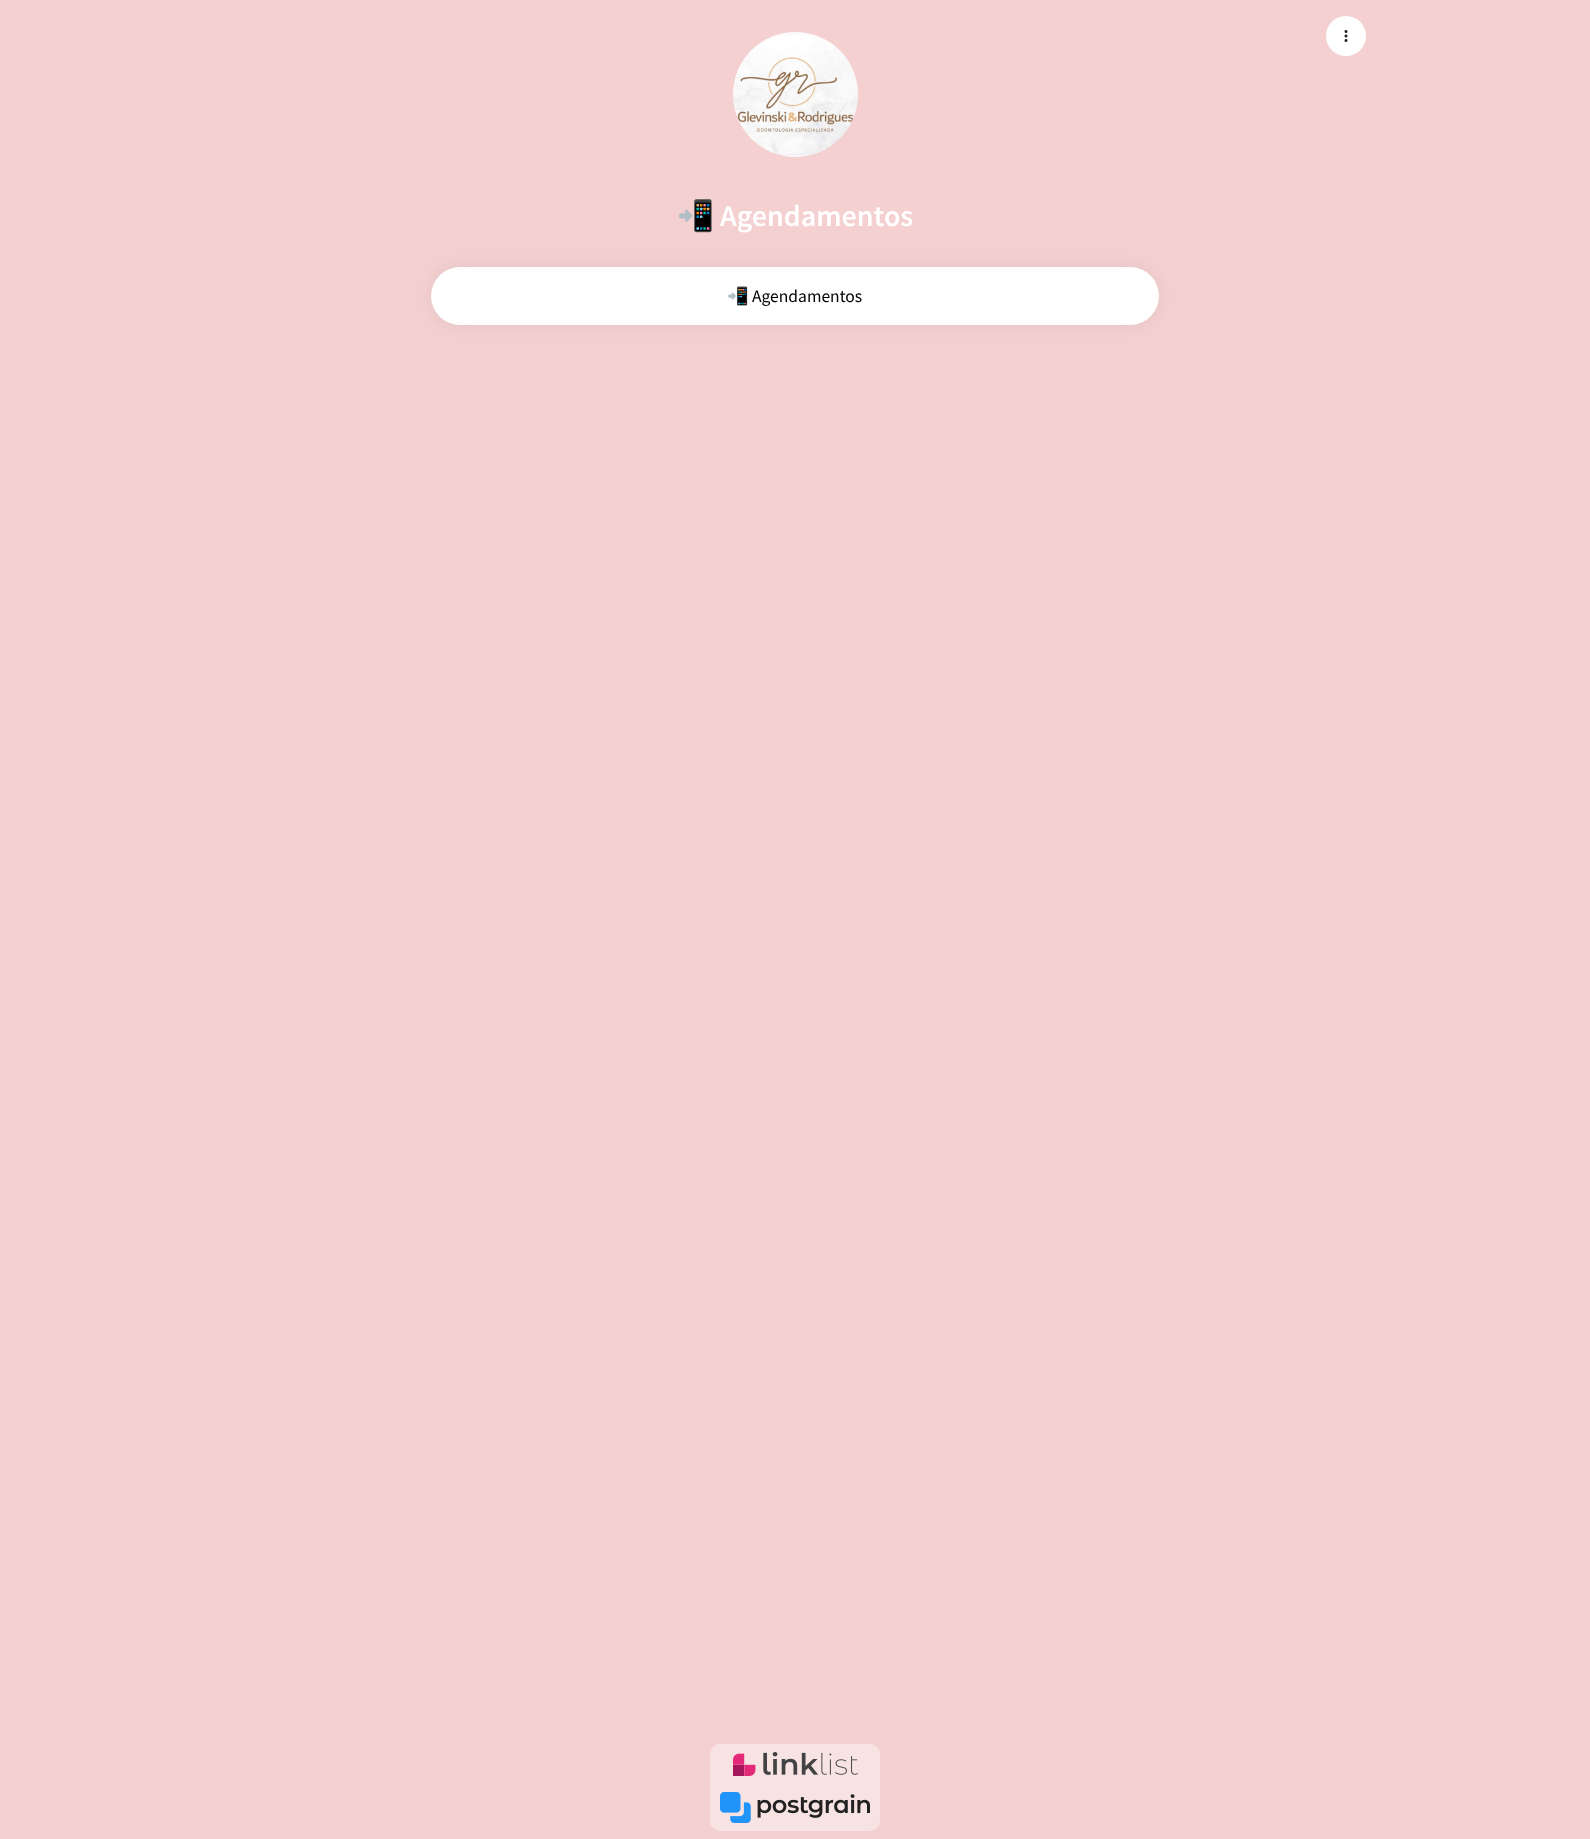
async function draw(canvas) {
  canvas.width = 1590
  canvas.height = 1839
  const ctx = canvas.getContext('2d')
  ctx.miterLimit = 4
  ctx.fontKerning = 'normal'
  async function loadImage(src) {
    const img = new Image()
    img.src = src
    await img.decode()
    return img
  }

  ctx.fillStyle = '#f4d0d0'
  ctx.fillRect(0, 0, 1590, 1839)
  ctx.fillStyle = '#fff'
  ctx.beginPath()
  ctx.arc(1346, 36, 20, 0, 2 * Math.PI)
  ctx.fill()
  ctx.drawImage(await loadImage('image0.png'), 1344, 30, 4, 12)
  ctx.drawImage(await loadImage('image1.png'), 733, 32, 125, 125)
  ctx.font = '30px Noto Color Emoji'
  ctx.fillText('📲', 677, 226)
  ctx.font = '600 30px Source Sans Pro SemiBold'
  ctx.fillText('Agendamentos', 720, 226)
  ctx.fillStyle = '#0000000f'
  ctx.filter = 'blur(10px)'
  ctx.beginPath()
  ctx.roundRect(431, 267, 728, 58, 29)
  ctx.fill()
  ctx.filter = 'none'
  ctx.fillStyle = '#fff'
  ctx.beginPath()
  ctx.roundRect(431, 267, 728, 58, 29)
  ctx.fill()
  ctx.font = '17.5px Noto Color Emoji'
  ctx.fillStyle = '#000'
  ctx.fillText('📲', 727, 302)
  ctx.font = '17.5px Source Sans Pro'
  ctx.fillText('Agendamentos', 752, 302)
  ctx.fillStyle = '#f8e3e3'
  ctx.beginPath()
  ctx.roundRect(710, 1744, 170, 87, 10)
  ctx.fill()
  ctx.drawImage(await loadImage('image2.png'), 733, 1752, 125, 24)
  ctx.drawImage(await loadImage('image3.png'), 720, 1792, 150, 31)
}

draw(document.querySelector('canvas'))
